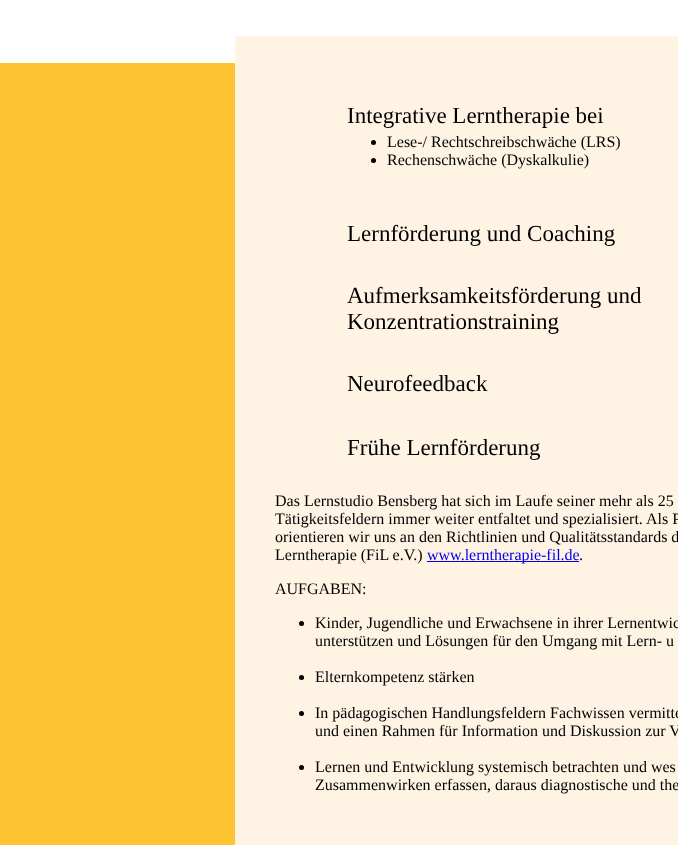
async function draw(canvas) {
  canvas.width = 678
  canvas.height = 845
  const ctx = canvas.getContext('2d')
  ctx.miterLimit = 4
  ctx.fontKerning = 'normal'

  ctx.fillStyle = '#fff'
  ctx.fillRect(0, 0, 678, 845)
  ctx.fillStyle = '#fff4e4'
  ctx.fillRect(235, 36, 443, 809)
  ctx.fillStyle = '#fec331'
  ctx.fillRect(0, 63, 235, 782)
  ctx.font = '23px Liberation Serif'
  ctx.fillStyle = '#000'
  ctx.fillText('Integrative Lerntherapie bei', 347, 123)
  ctx.beginPath()
  ctx.arc(373.5, 142.5, 2.5, 0, 2 * Math.PI)
  ctx.fill()
  ctx.font = '16px Liberation Serif'
  ctx.fillText('Lese-/ Rechtschreibschwäche (LRS)', 387, 147)
  ctx.beginPath()
  ctx.arc(373.5, 160.5, 2.5, 0, 2 * Math.PI)
  ctx.fill()
  ctx.fillText('Rechenschwäche (Dyskalkulie)', 387, 165)
  ctx.font = '23px Liberation Serif'
  ctx.fillText('Lernförderung und Coaching', 347, 241)
  ctx.fillText('Aufmerksamkeitsförderung und', 347, 303)
  ctx.fillText('Konzentrationstraining', 347, 329)
  ctx.fillText('Neurofeedback', 347, 391)
  ctx.fillText('Frühe Lernförderung', 347, 455)
  ctx.font = '16px Liberation Serif'
  ctx.fillText('Das Lernstudio Bensberg hat sich im Laufe seiner mehr als 25', 275, 506)
  ctx.fillText('Tätigkeitsfeldern immer weiter entfaltet und spezialisiert. Als P', 275, 524)
  ctx.fillText('orientieren wir uns an den Richtlinien und Qualitätsstandards d', 275, 542)
  ctx.fillText('Lerntherapie (FiL e.V.)', 275, 560)
  ctx.fillStyle = '#00e'
  ctx.fillRect(427, 561, 152, 1)
  ctx.fillText('www.lerntherapie-fil.de', 427, 560)
  ctx.fillStyle = '#000'
  ctx.fillText('.', 579, 560)
  ctx.fillText('AUFGABEN:', 275, 594)
  ctx.beginPath()
  ctx.arc(301.5, 623.5, 2.5, 0, 2 * Math.PI)
  ctx.fill()
  ctx.fillText('Kinder, Jugendliche und Erwachsene in ihrer Lernentwic', 315, 628)
  ctx.fillText('unterstützen und Lösungen für den Umgang mit Lern- u', 315, 646)
  ctx.beginPath()
  ctx.arc(301.5, 677.5, 2.5, 0, 2 * Math.PI)
  ctx.fill()
  ctx.fillText('Elternkompetenz stärken', 315, 682)
  ctx.beginPath()
  ctx.arc(301.5, 713.5, 2.5, 0, 2 * Math.PI)
  ctx.fill()
  ctx.fillText('In pädagogischen Handlungsfeldern Fachwissen vermitte', 315, 718)
  ctx.fillText('und einen Rahmen für Information und Diskussion zur V', 315, 736)
  ctx.beginPath()
  ctx.arc(301.5, 767.5, 2.5, 0, 2 * Math.PI)
  ctx.fill()
  ctx.fillText('Lernen und Entwicklung systemisch betrachten und wes', 315, 772)
  ctx.fillText('Zusammenwirken erfassen, daraus diagnostische und the', 315, 790)
}

draw(document.querySelector('canvas'))
